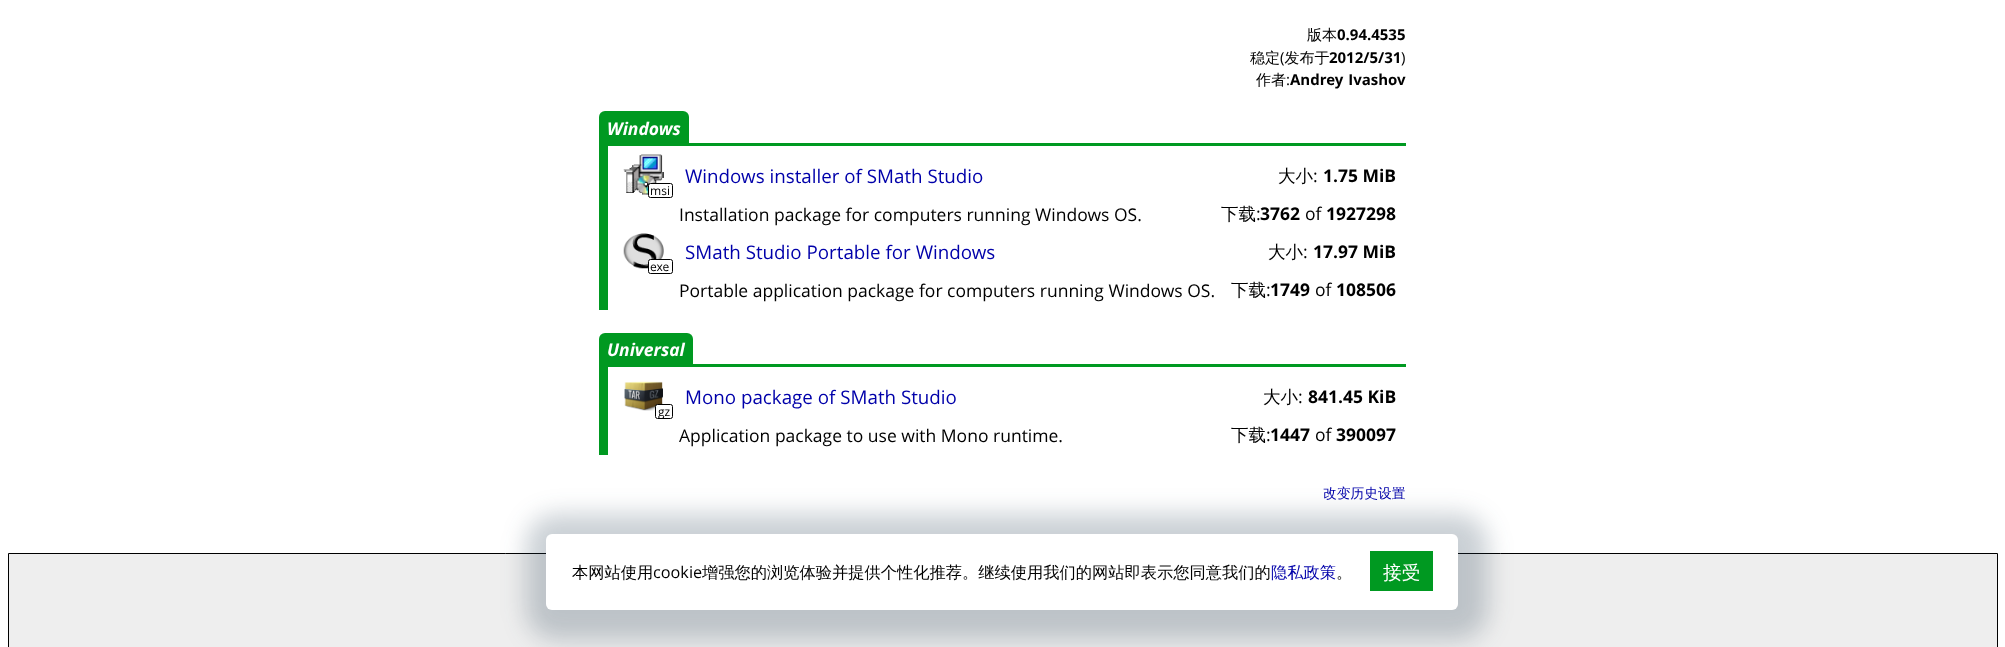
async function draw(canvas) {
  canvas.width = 2005
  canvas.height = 647
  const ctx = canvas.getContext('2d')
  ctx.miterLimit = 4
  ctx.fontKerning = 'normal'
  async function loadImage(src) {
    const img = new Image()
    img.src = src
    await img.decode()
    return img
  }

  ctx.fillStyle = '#fff'
  ctx.fillRect(0, 0, 2005, 647)
  ctx.font = '500 15px WenQuanYi Zen Hei'
  ctx.fillStyle = '#000'
  ctx.fillText('版本', 1307, 40)
  ctx.font = 'bold 15px Open Sans'
  ctx.fillText('0.94.4535', 1337, 40)
  ctx.font = '500 15px WenQuanYi Zen Hei'
  ctx.fillText('稳定 发布于', 1250, 63)
  ctx.font = '15px Open Sans'
  ctx.fillText('(', 1280, 63)
  ctx.font = 'bold 15px Open Sans'
  ctx.fillText('2012/5/31', 1329, 63)
  ctx.font = '15px Open Sans'
  ctx.fillText(')', 1401, 63)
  ctx.font = '500 15px WenQuanYi Zen Hei'
  ctx.fillText('作者', 1256, 85)
  ctx.font = '15px Open Sans'
  ctx.fillText(':', 1286, 85)
  ctx.wordSpacing = '1px'
  ctx.font = 'bold 15px Open Sans'
  ctx.fillText('Andrey Ivashov', 1290, 85)
  ctx.fillStyle = '#009921'
  ctx.fillRect(608, 143, 798, 3)
  ctx.beginPath()
  ctx.roundRect(599, 111, 90, 34, [6, 6, 0, 0])
  ctx.fill()
  ctx.wordSpacing = '0px'
  ctx.font = 'italic bold 17.5px Open Sans'
  ctx.fillStyle = '#fff'
  ctx.fillText('Windows', 607, 135)
  ctx.fillStyle = '#009921'
  ctx.fillRect(599, 145, 9, 165)
  ctx.font = '18.75px Open Sans'
  ctx.fillStyle = '#00a'
  ctx.fillText('Windows installer of SMath Studio', 685, 183)
  ctx.font = '500 17.5px WenQuanYi Zen Hei'
  ctx.fillStyle = '#000'
  ctx.fillText('大小', 1278, 182)
  ctx.font = '17.5px Open Sans'
  ctx.fillText(':', 1313, 182)
  ctx.font = 'bold 17.5px Open Sans'
  ctx.fillText('1.75 MiB', 1323, 182)
  ctx.drawImage(await loadImage('image0.png'), 623, 154, 41, 41)
  ctx.fillStyle = '#fff'
  ctx.beginPath()
  ctx.roundRect(648.5, 183.5, 24, 14, 2)
  ctx.fill()
  ctx.strokeStyle = '#000'
  ctx.stroke()
  ctx.font = '12px Open Sans'
  ctx.fillStyle = '#000'
  ctx.fillText('msi', 650, 195)
  ctx.font = '17.5px Open Sans'
  ctx.fillText('Installation package for computers running Windows OS.', 679, 221)
  ctx.font = '500 17.5px WenQuanYi Zen Hei'
  ctx.fillText('下载', 1221, 220)
  ctx.font = '17.5px Open Sans'
  ctx.fillText(':', 1256, 220)
  ctx.font = 'bold 17.5px Open Sans'
  ctx.fillText('3762', 1260, 220)
  ctx.font = '17.5px Open Sans'
  ctx.fillText('of', 1305, 220)
  ctx.font = 'bold 17.5px Open Sans'
  ctx.fillText('1927298', 1326, 220)
  ctx.font = '18.75px Open Sans'
  ctx.fillStyle = '#00a'
  ctx.fillText('SMath Studio Portable for Windows', 685, 259)
  ctx.font = '500 17.5px WenQuanYi Zen Hei'
  ctx.fillStyle = '#000'
  ctx.fillText('大小', 1268, 258)
  ctx.font = '17.5px Open Sans'
  ctx.fillText(':', 1303, 258)
  ctx.font = 'bold 17.5px Open Sans'
  ctx.fillText('17.97 MiB', 1313, 258)
  ctx.drawImage(await loadImage('image1.png'), 623, 233, 41, 36)
  ctx.fillStyle = '#fff'
  ctx.beginPath()
  ctx.roundRect(648.5, 259.5, 24, 14, 2)
  ctx.fill()
  ctx.stroke()
  ctx.font = '12px Open Sans'
  ctx.fillStyle = '#000'
  ctx.fillText('exe', 650, 271)
  ctx.font = '17.5px Open Sans'
  ctx.fillText('Portable application package for computers running Windows OS.', 679, 297)
  ctx.font = '500 17.5px WenQuanYi Zen Hei'
  ctx.fillText('下载', 1231, 296)
  ctx.font = '17.5px Open Sans'
  ctx.fillText(':', 1266, 296)
  ctx.font = 'bold 17.5px Open Sans'
  ctx.fillText('1749', 1270, 296)
  ctx.font = '17.5px Open Sans'
  ctx.fillText('of', 1315, 296)
  ctx.font = 'bold 17.5px Open Sans'
  ctx.fillText('108506', 1336, 296)
  ctx.fillStyle = '#009921'
  ctx.fillRect(608, 364, 798, 3)
  ctx.beginPath()
  ctx.roundRect(599, 333, 94, 33, [6, 6, 0, 0])
  ctx.fill()
  ctx.font = 'italic bold 17.5px Open Sans'
  ctx.fillStyle = '#fff'
  ctx.fillText('Universal', 607, 356)
  ctx.fillStyle = '#009921'
  ctx.fillRect(599, 366, 9, 89)
  ctx.font = '18.75px Open Sans'
  ctx.fillStyle = '#00a'
  ctx.fillText('Mono package of SMath Studio', 685, 404)
  ctx.font = '500 17.5px WenQuanYi Zen Hei'
  ctx.fillStyle = '#000'
  ctx.fillText('大小', 1263, 403)
  ctx.font = '17.5px Open Sans'
  ctx.fillText(':', 1298, 403)
  ctx.font = 'bold 17.5px Open Sans'
  ctx.fillText('841.45 KiB', 1308, 403)
  ctx.drawImage(await loadImage('image2.png'), 624, 381, 39, 30)
  ctx.fillStyle = '#fff'
  ctx.beginPath()
  ctx.roundRect(655.5, 404.5, 17, 14, 2)
  ctx.fill()
  ctx.stroke()
  ctx.font = '12px Open Sans'
  ctx.fillStyle = '#000'
  ctx.fillText('gz', 658, 416)
  ctx.font = '17.5px Open Sans'
  ctx.fillText('Application package to use with Mono runtime.', 679, 442)
  ctx.font = '500 17.5px WenQuanYi Zen Hei'
  ctx.fillText('下载', 1231, 441)
  ctx.font = '17.5px Open Sans'
  ctx.fillText(':', 1266, 441)
  ctx.font = 'bold 17.5px Open Sans'
  ctx.fillText('1447', 1270, 441)
  ctx.font = '17.5px Open Sans'
  ctx.fillText('of', 1315, 441)
  ctx.font = 'bold 17.5px Open Sans'
  ctx.fillText('390097', 1336, 441)
  ctx.font = '500 13.75px WenQuanYi Zen Hei'
  ctx.fillStyle = '#00a'
  ctx.fillText('改变历史设置', 1323, 498)
  ctx.fillStyle = '#eee'
  ctx.beginPath()
  ctx.rect(8.5, 553.5, 1989, 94)
  ctx.fill()
  ctx.stroke()
  ctx.fillStyle = '#223c503d'
  ctx.filter = 'blur(12.5px)'
  ctx.beginPath()
  ctx.roundRect(526, 514, 962, 126, 31)
  ctx.fill()
  ctx.filter = 'none'
  ctx.fillStyle = '#fff'
  ctx.beginPath()
  ctx.roundRect(546, 534, 912, 76, 6)
  ctx.fill()
  ctx.font = '500 16.25px WenQuanYi Zen Hei'
  ctx.fillStyle = '#000'
  ctx.fillText('本网站使用', 572, 578)
  ctx.font = '16.25px Open Sans'
  ctx.fillText('cookie', 653, 578)
  ctx.font = '500 16.25px WenQuanYi Zen Hei'
  ctx.fillText('增强您的浏览体验并提供个性化推荐。继续使用我们的网站即表示您同意我们的', 702, 578)
  ctx.fillStyle = '#00a'
  ctx.fillText('隐私政策', 1271, 578)
  ctx.fillStyle = '#000'
  ctx.fillText('。', 1336, 578)
  ctx.fillStyle = '#009921'
  ctx.fillRect(1370, 551, 63, 40)
  ctx.font = '500 18.75px WenQuanYi Zen Hei'
  ctx.fillStyle = '#fff'
  ctx.fillText('接受', 1383, 579)
}

draw(document.querySelector('canvas'))
